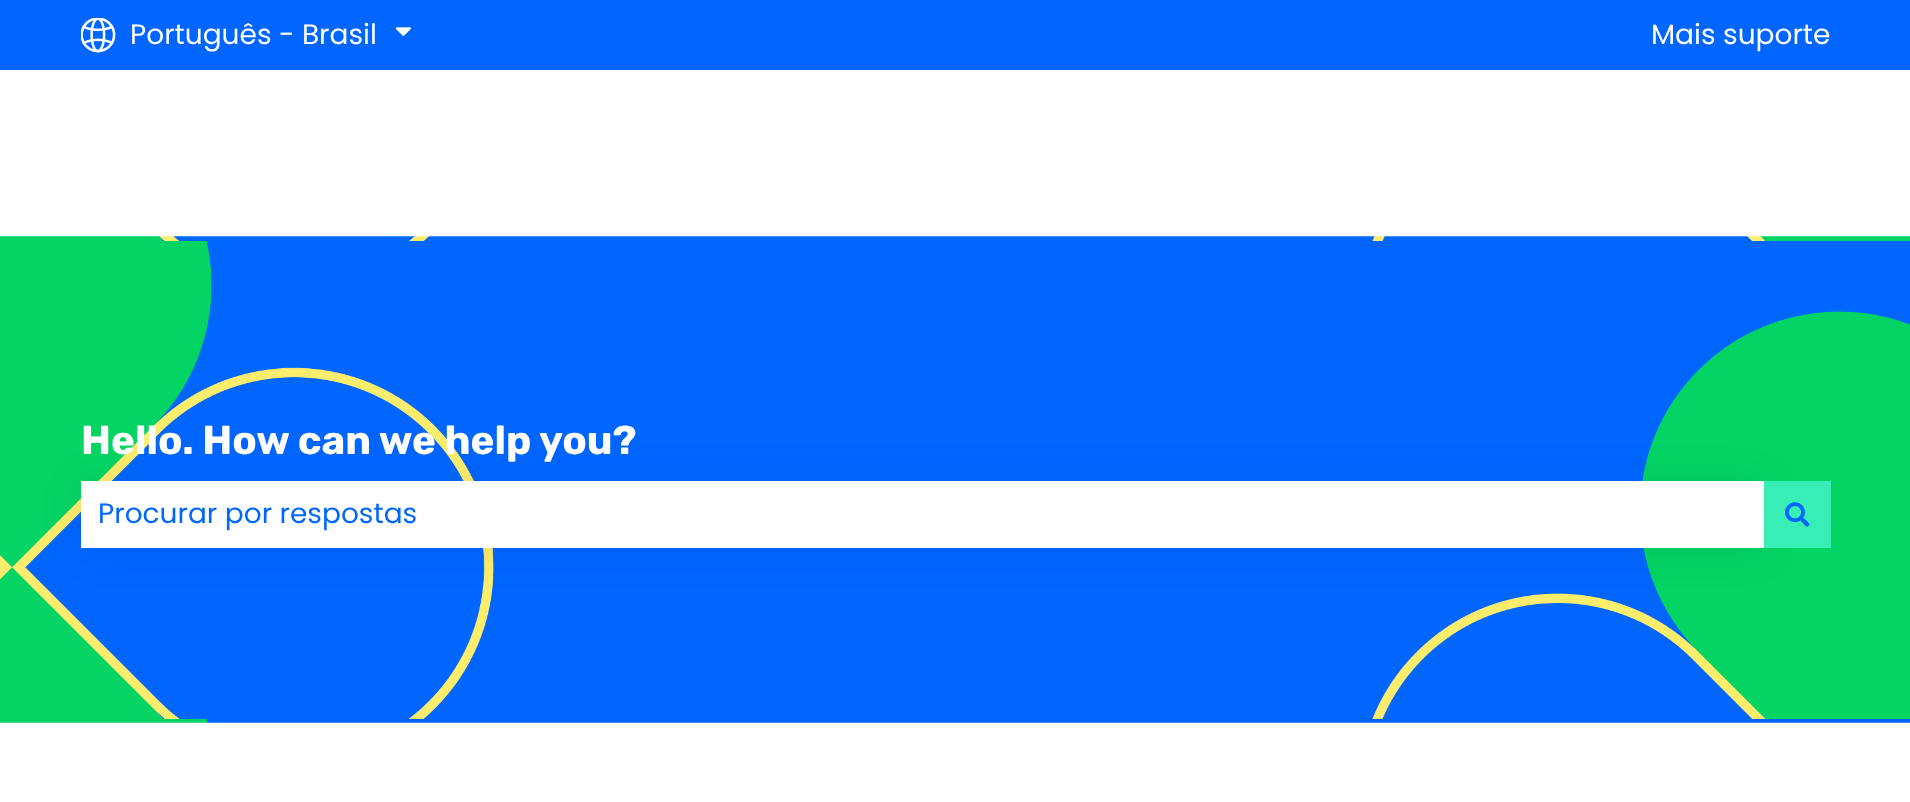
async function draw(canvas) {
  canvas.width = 1910
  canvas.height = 802
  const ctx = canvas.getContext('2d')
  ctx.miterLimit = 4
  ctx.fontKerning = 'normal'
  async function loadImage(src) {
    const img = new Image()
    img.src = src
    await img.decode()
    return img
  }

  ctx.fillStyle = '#fff'
  ctx.fillRect(0, 0, 1910, 802)
  ctx.fillStyle = '#06f'
  ctx.fillRect(0, 0, 1910, 70)
  ctx.drawImage(await loadImage('image0.png'), 81, 18, 35, 35)
  ctx.font = '28px Poppins'
  ctx.fillStyle = '#fff'
  ctx.fillText('Português - Brasil', 130, 44)
  ctx.drawImage(await loadImage('image1.png'), 395, 27, 16, 9)
  ctx.fillText('Mais suporte', 1651, 44)
  ctx.drawImage(await loadImage('image2.png'), 0, 236, 1910, 487)
  ctx.font = 'bold 40.25px Rubik'
  ctx.fillText('Hello. How can we help you?', 81, 454)
  ctx.fillStyle = '#00000014'
  ctx.filter = 'blur(21px)'
  ctx.beginPath()
  ctx.rect(81, 483, 1683, 67)
  ctx.fill()
  ctx.filter = 'none'
  ctx.fillStyle = '#fff'
  ctx.fillRect(81, 481, 1683, 67)
  ctx.font = '28px Poppins'
  ctx.fillStyle = '#06f'
  ctx.fillText('Procurar por respostas', 98, 523)
  ctx.fillStyle = '#37eeb7'
  ctx.fillRect(1764, 481, 67, 67)
  ctx.drawImage(await loadImage('image3.png'), 1785, 502, 25, 25)
}

draw(document.querySelector('canvas'))
